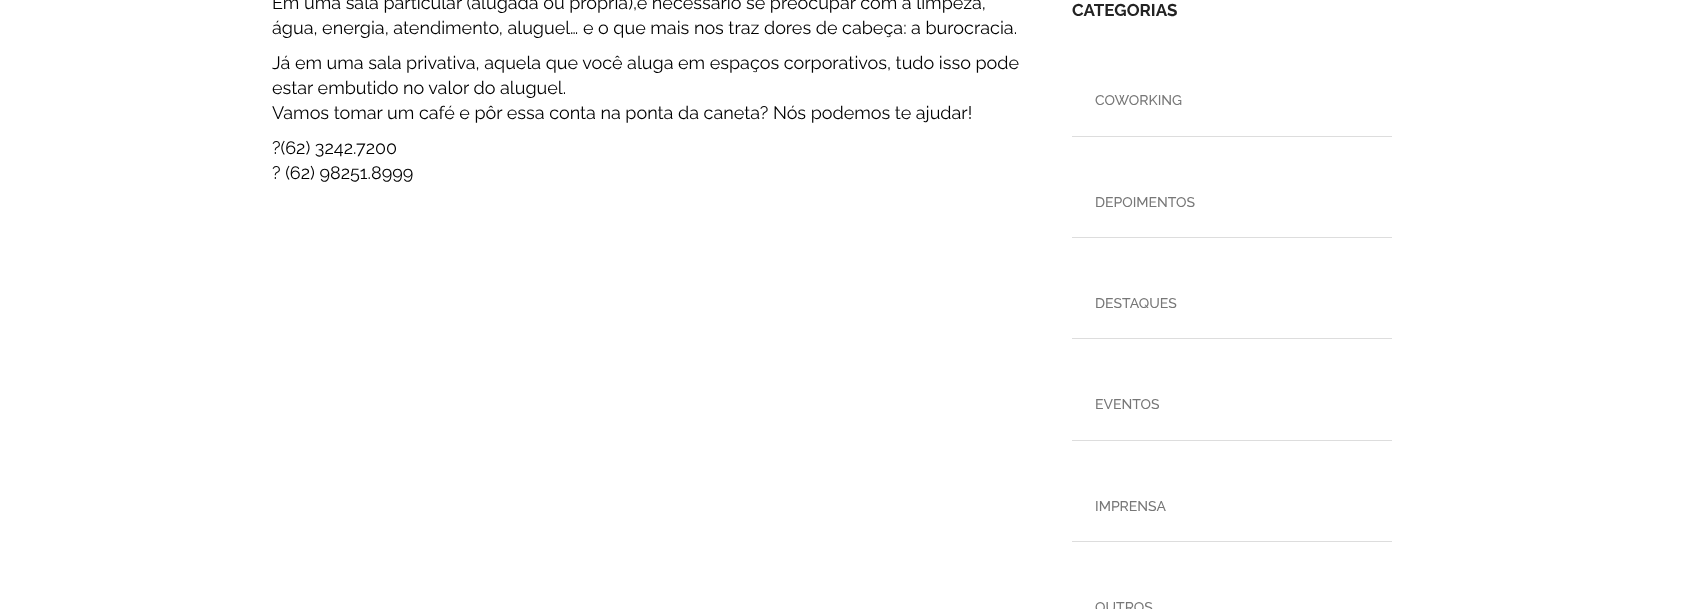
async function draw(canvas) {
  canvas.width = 1683
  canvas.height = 609
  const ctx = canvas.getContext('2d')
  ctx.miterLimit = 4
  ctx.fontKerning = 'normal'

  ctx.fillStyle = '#fff'
  ctx.fillRect(0, 0, 1683, 609)
  ctx.font = '18px Raleway'
  ctx.fillStyle = '#000'
  ctx.fillText('Em uma sala particular (alugada ou própria),é necessário se preocupar com a limpeza,', 272, 9)
  ctx.fillText('água, energia, atendimento, aluguel… e o que mais nos traz dores de cabeça: a burocracia.', 272, 34)
  ctx.fillText('Já em uma sala privativa, aquela que você aluga em espaços corporativos, tudo isso pode', 272, 69)
  ctx.fillText('estar embutido no valor do aluguel.', 272, 94)
  ctx.fillText('Vamos tomar um café e pôr essa conta na ponta da caneta? Nós podemos te ajudar!', 272, 119)
  ctx.fillText('?(62) 3242.7200', 272, 154)
  ctx.fillText('? (62) 98251.8999', 272, 179)
  ctx.font = 'bold 17px Raleway'
  ctx.fillStyle = '#232323'
  ctx.fillText('CATEGORIAS', 1072, 16)
  ctx.fillStyle = '#ddd'
  ctx.fillRect(1072, 136, 320, 1)
  ctx.font = '500 14px Raleway'
  ctx.fillStyle = '#777'
  ctx.fillText('COWORKING', 1095, 105)
  ctx.fillStyle = '#ddd'
  ctx.fillRect(1072, 237, 320, 1)
  ctx.fillStyle = '#777'
  ctx.fillText('DEPOIMENTOS', 1095, 207)
  ctx.fillStyle = '#ddd'
  ctx.fillRect(1072, 338, 320, 1)
  ctx.fillStyle = '#777'
  ctx.fillText('DESTAQUES', 1095, 308)
  ctx.fillStyle = '#ddd'
  ctx.fillRect(1072, 440, 320, 1)
  ctx.fillStyle = '#777'
  ctx.fillText('EVENTOS', 1095, 409)
  ctx.fillStyle = '#ddd'
  ctx.fillRect(1072, 541, 320, 1)
  ctx.fillStyle = '#777'
  ctx.fillText('IMPRENSA', 1095, 511)
  ctx.fillText('OUTROS', 1095, 612)
}

draw(document.querySelector('canvas'))
